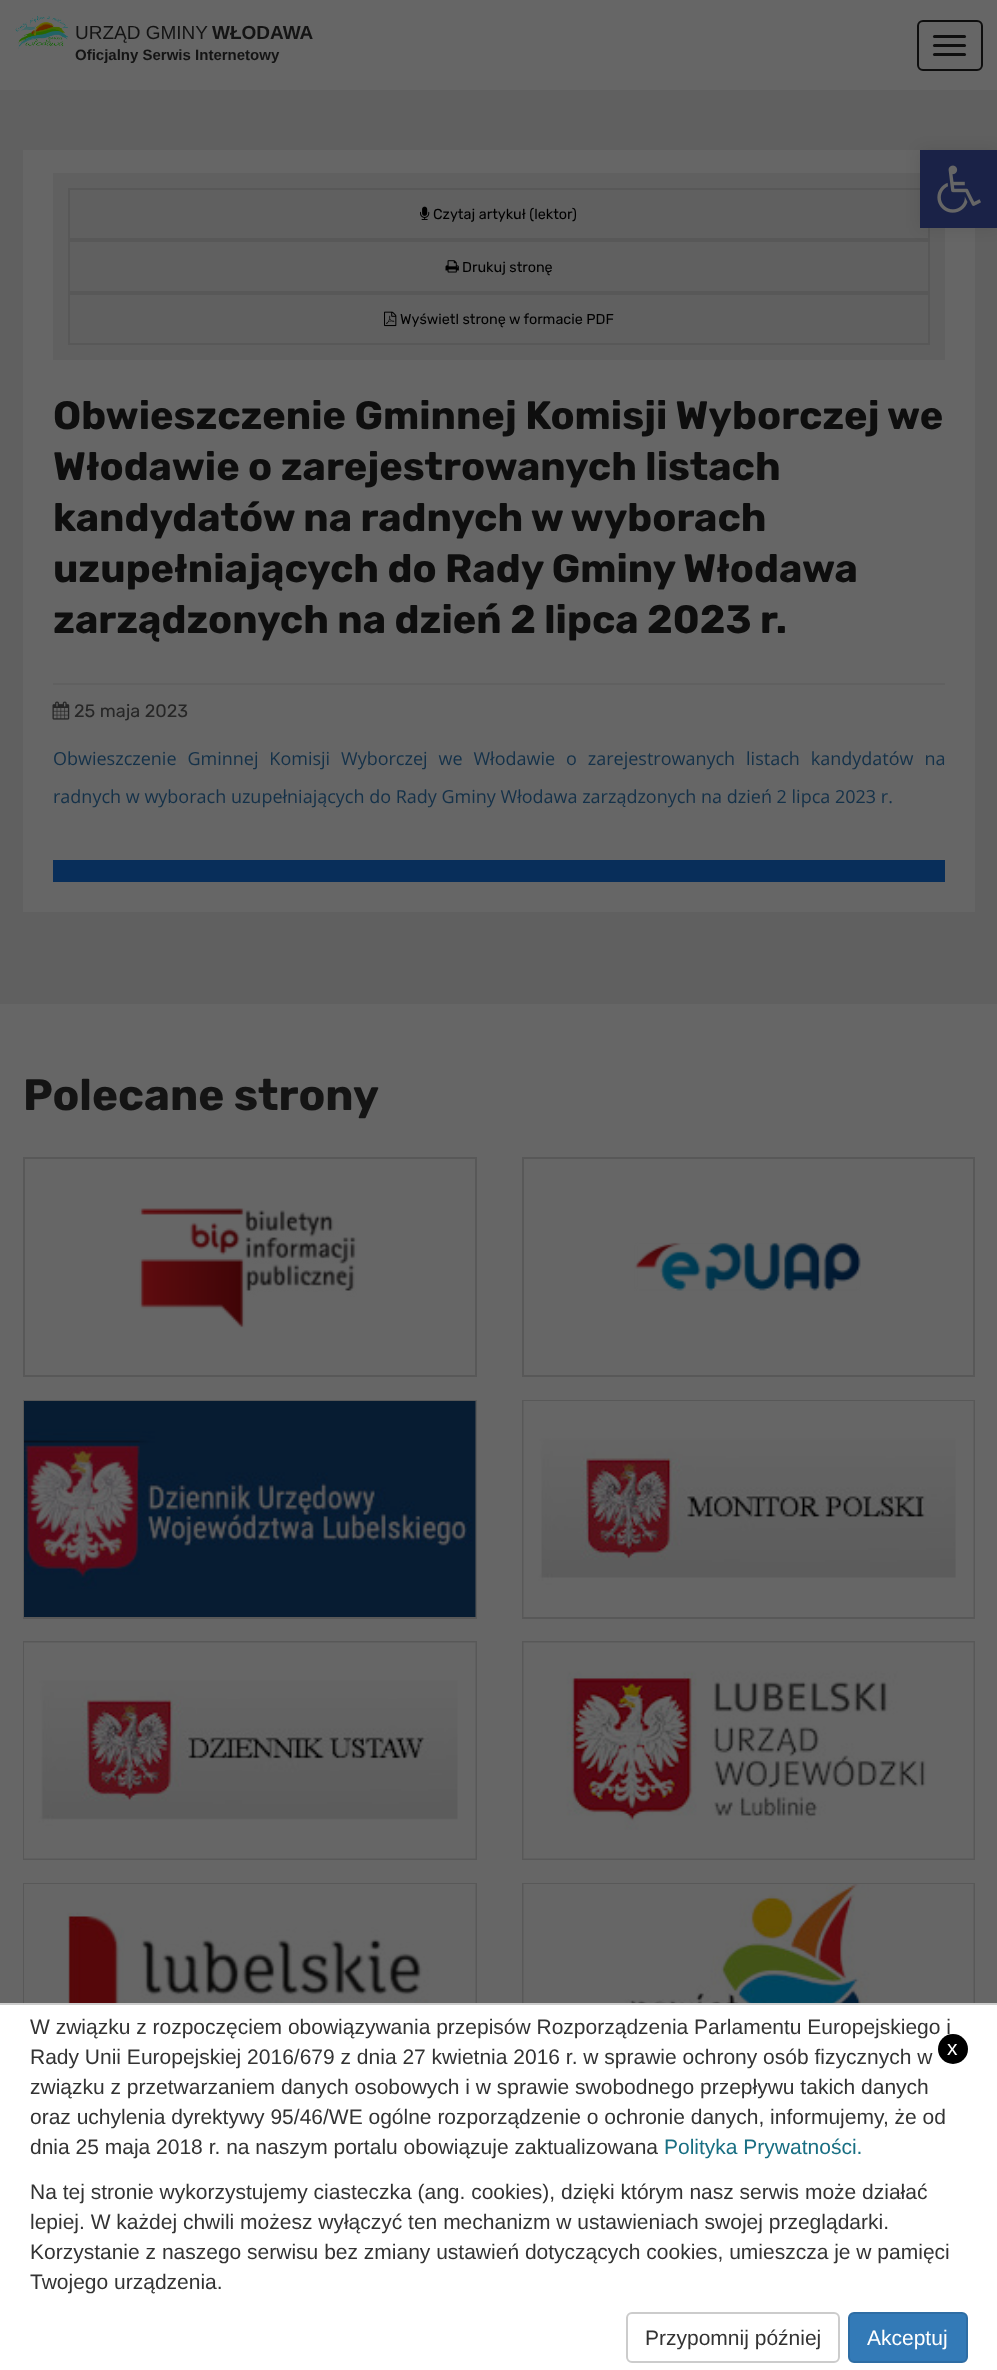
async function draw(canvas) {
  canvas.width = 997
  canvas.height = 2370
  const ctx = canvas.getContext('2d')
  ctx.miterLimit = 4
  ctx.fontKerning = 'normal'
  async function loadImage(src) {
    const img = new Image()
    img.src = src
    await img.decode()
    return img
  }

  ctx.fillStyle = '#666'
  ctx.fillRect(0, 0, 997, 2370)
  ctx.drawImage(await loadImage('image0.png'), 15, 15, 54, 34)
  ctx.font = '19px Liberation Sans'
  ctx.fillStyle = '#141414'
  ctx.fillText('URZĄD GMINY', 75, 39)
  ctx.font = 'bold 19px Liberation Sans'
  ctx.fillText('WŁODAWA', 212, 39)
  ctx.font = 'bold 15px Liberation Sans'
  ctx.fillText('Oficjalny Serwis Internetowy', 75, 60)
  ctx.beginPath()
  ctx.roundRect(918, 21, 64, 49, 5)
  ctx.strokeStyle = '#0e0e0e'
  ctx.lineWidth = 2
  ctx.stroke()
  ctx.fillStyle = '#0e0e0e'
  ctx.beginPath()
  ctx.roundRect(933, 35, 33, 3, 1.5)
  ctx.fill()
  ctx.beginPath()
  ctx.roundRect(933, 44, 33, 3, 1.5)
  ctx.fill()
  ctx.beginPath()
  ctx.roundRect(933, 53, 33, 3, 1.5)
  ctx.fill()
  ctx.fillStyle = '#606060'
  ctx.fillRect(0, 90, 997, 914)
  ctx.fillStyle = '#666'
  ctx.fillRect(23, 150, 952, 762)
  ctx.fillStyle = '#606060'
  ctx.fillRect(53, 173, 892, 187)
  ctx.strokeStyle = '#585858'
  ctx.strokeRect(69, 189, 860, 50)
  ctx.strokeRect(69, 241, 860, 51)
  ctx.fillStyle = '#0000001a'
  ctx.filter = 'blur(7.5px)'
  ctx.beginPath()
  ctx.rect(920, 150, 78, 78)
  ctx.fill()
  ctx.filter = 'none'
  ctx.fillStyle = '#1a2247'
  ctx.fillRect(920, 150, 77, 78)
  ctx.drawImage(await loadImage('image1.png'), 937, 165, 44, 48)
  ctx.drawImage(await loadImage('image2.png'), 420, 206, 10, 14)
  ctx.font = '14.4px Rubik'
  ctx.fillStyle = '#000'
  ctx.fillText('Czytaj artykuł (lektor)', 433, 219)
  ctx.drawImage(await loadImage('image3.png'), 445, 260, 14, 13)
  ctx.fillText('Drukuj stronę', 462, 272)
  ctx.strokeRect(69, 294, 860, 50)
  ctx.drawImage(await loadImage('image4.png'), 384, 311, 13, 16)
  ctx.fillText('Wyświetl stronę w formacie PDF', 400, 324)
  ctx.fillStyle = '#606060'
  ctx.fillRect(53, 683, 892, 2)
  ctx.font = 'bold 39.6px Rubik'
  ctx.fillStyle = '#0e0e0e'
  ctx.fillText('Obwieszczenie Gminnej Komisji Wyborczej we', 53, 429)
  ctx.fillText('Włodawie o zarejestrowanych listach', 53, 480)
  ctx.fillText('kandydatów na radnych w wyborach', 53, 531)
  ctx.fillText('uzupełniających do Rady Gminy Włodawa', 53, 582)
  ctx.fillText('zarządzonych na dzień 2 lipca 2023 r.', 53, 633)
  ctx.drawImage(await loadImage('image5.png'), 52, 701, 18, 19)
  ctx.font = '18px Rubik'
  ctx.fillStyle = '#262626'
  ctx.fillText('25 maja 2023', 74, 717)
  ctx.wordSpacing = '6.25px'
  ctx.font = '18px Open Sans'
  ctx.fillStyle = '#143149'
  ctx.fillText('Obwieszczenie Gminnej Komisji Wyborczej we Włodawie o zarejestrowanych listach kandydatów na', 53, 765)
  ctx.wordSpacing = '0px'
  ctx.fillText('radnych w wyborach uzupełniających do Rady Gminy Włodawa zarządzonych na dzień 2 lipca 2023 r.', 53, 803)
  ctx.fillStyle = '#082e5a'
  ctx.fillRect(53, 860, 892, 22)
  ctx.font = 'bold 44px Rubik'
  ctx.fillStyle = '#141414'
  ctx.fillText('Polecane strony', 23, 1110)
  ctx.strokeRect(24, 1158, 452, 218)
  ctx.drawImage(await loadImage('image6.png'), 139, 1208, 218, 120)
  ctx.strokeRect(523, 1158, 451, 218)
  ctx.drawImage(await loadImage('image7.png'), 634, 1242, 227, 49)
  ctx.strokeRect(24, 1401, 452, 217)
  ctx.drawImage(await loadImage('image8.png'), 24, 1401, 452, 216)
  ctx.strokeRect(523, 1401, 451, 217)
  ctx.drawImage(await loadImage('image9.png'), 523, 1401, 451, 216)
  ctx.strokeRect(24, 1642, 452, 217)
  ctx.drawImage(await loadImage('image10.png'), 24, 1642, 452, 217)
  ctx.strokeRect(523, 1642, 451, 217)
  ctx.drawImage(await loadImage('image11.png'), 523, 1642, 451, 217)
  ctx.strokeRect(24, 1884, 452, 217)
  ctx.drawImage(await loadImage('image12.png'), 24, 1884, 452, 119)
  ctx.strokeRect(523, 1884, 451, 217)
  ctx.drawImage(await loadImage('image13.png'), 523, 1884, 451, 119)
  ctx.fillStyle = '#fff'
  ctx.fillRect(0, 2005, 997, 365)
  ctx.fillStyle = '#ccc'
  ctx.fillRect(0, 2003, 997, 2)
  ctx.fillStyle = '#000'
  ctx.beginPath()
  ctx.arc(953, 2049, 15, 0, 2 * Math.PI)
  ctx.fill()
  ctx.font = '21px Liberation Sans'
  ctx.fillStyle = '#333'
  ctx.fillText('W związku z rozpoczęciem obowiązywania przepisów Rozporządzenia Parlamentu Europejskiego i', 30, 2034)
  ctx.fillText('Rady Unii Europejskiej 2016/679 z dnia 27 kwietnia 2016 r. w sprawie ochrony osób fizycznych w', 30, 2064)
  ctx.fillText('związku z przetwarzaniem danych osobowych i w sprawie swobodnego przepływu takich danych', 30, 2094)
  ctx.fillText('oraz uchylenia dyrektywy 95/46/WE ogólne rozporządzenie o ochronie danych, informujemy, że od', 30, 2124)
  ctx.fillText('dnia 25 maja 2018 r. na naszym portalu obowiązuje zaktualizowana', 30, 2154)
  ctx.fillStyle = '#196f83'
  ctx.fillText('Polityka Prywatności.', 664, 2154)
  ctx.fillStyle = '#333'
  ctx.fillText('Na tej stronie wykorzystujemy ciasteczka (ang. cookies), dzięki którym nasz serwis może działać', 30, 2199)
  ctx.fillText('lepiej. W każdej chwili możesz wyłączyć ten mechanizm w ustawieniach swojej przeglądarki.', 30, 2229)
  ctx.fillText('Korzystanie z naszego serwisu bez zmiany ustawień dotyczących cookies, umieszcza je w pamięci', 30, 2259)
  ctx.fillText('Twojego urządzenia.', 30, 2289)
  ctx.beginPath()
  ctx.roundRect(627, 2313, 212, 49, 5)
  ctx.strokeStyle = '#ccc'
  ctx.stroke()
  ctx.fillText('Przypomnij później', 645, 2345)
  ctx.fillStyle = '#337ab7'
  ctx.beginPath()
  ctx.roundRect(849, 2313, 118, 49, 5)
  ctx.fill()
  ctx.strokeStyle = '#2e6da4'
  ctx.stroke()
  ctx.fillStyle = '#fff'
  ctx.fillText('Akceptuj', 867, 2345)
  ctx.fillText('x', 947, 2055)
}

draw(document.querySelector('canvas'))
